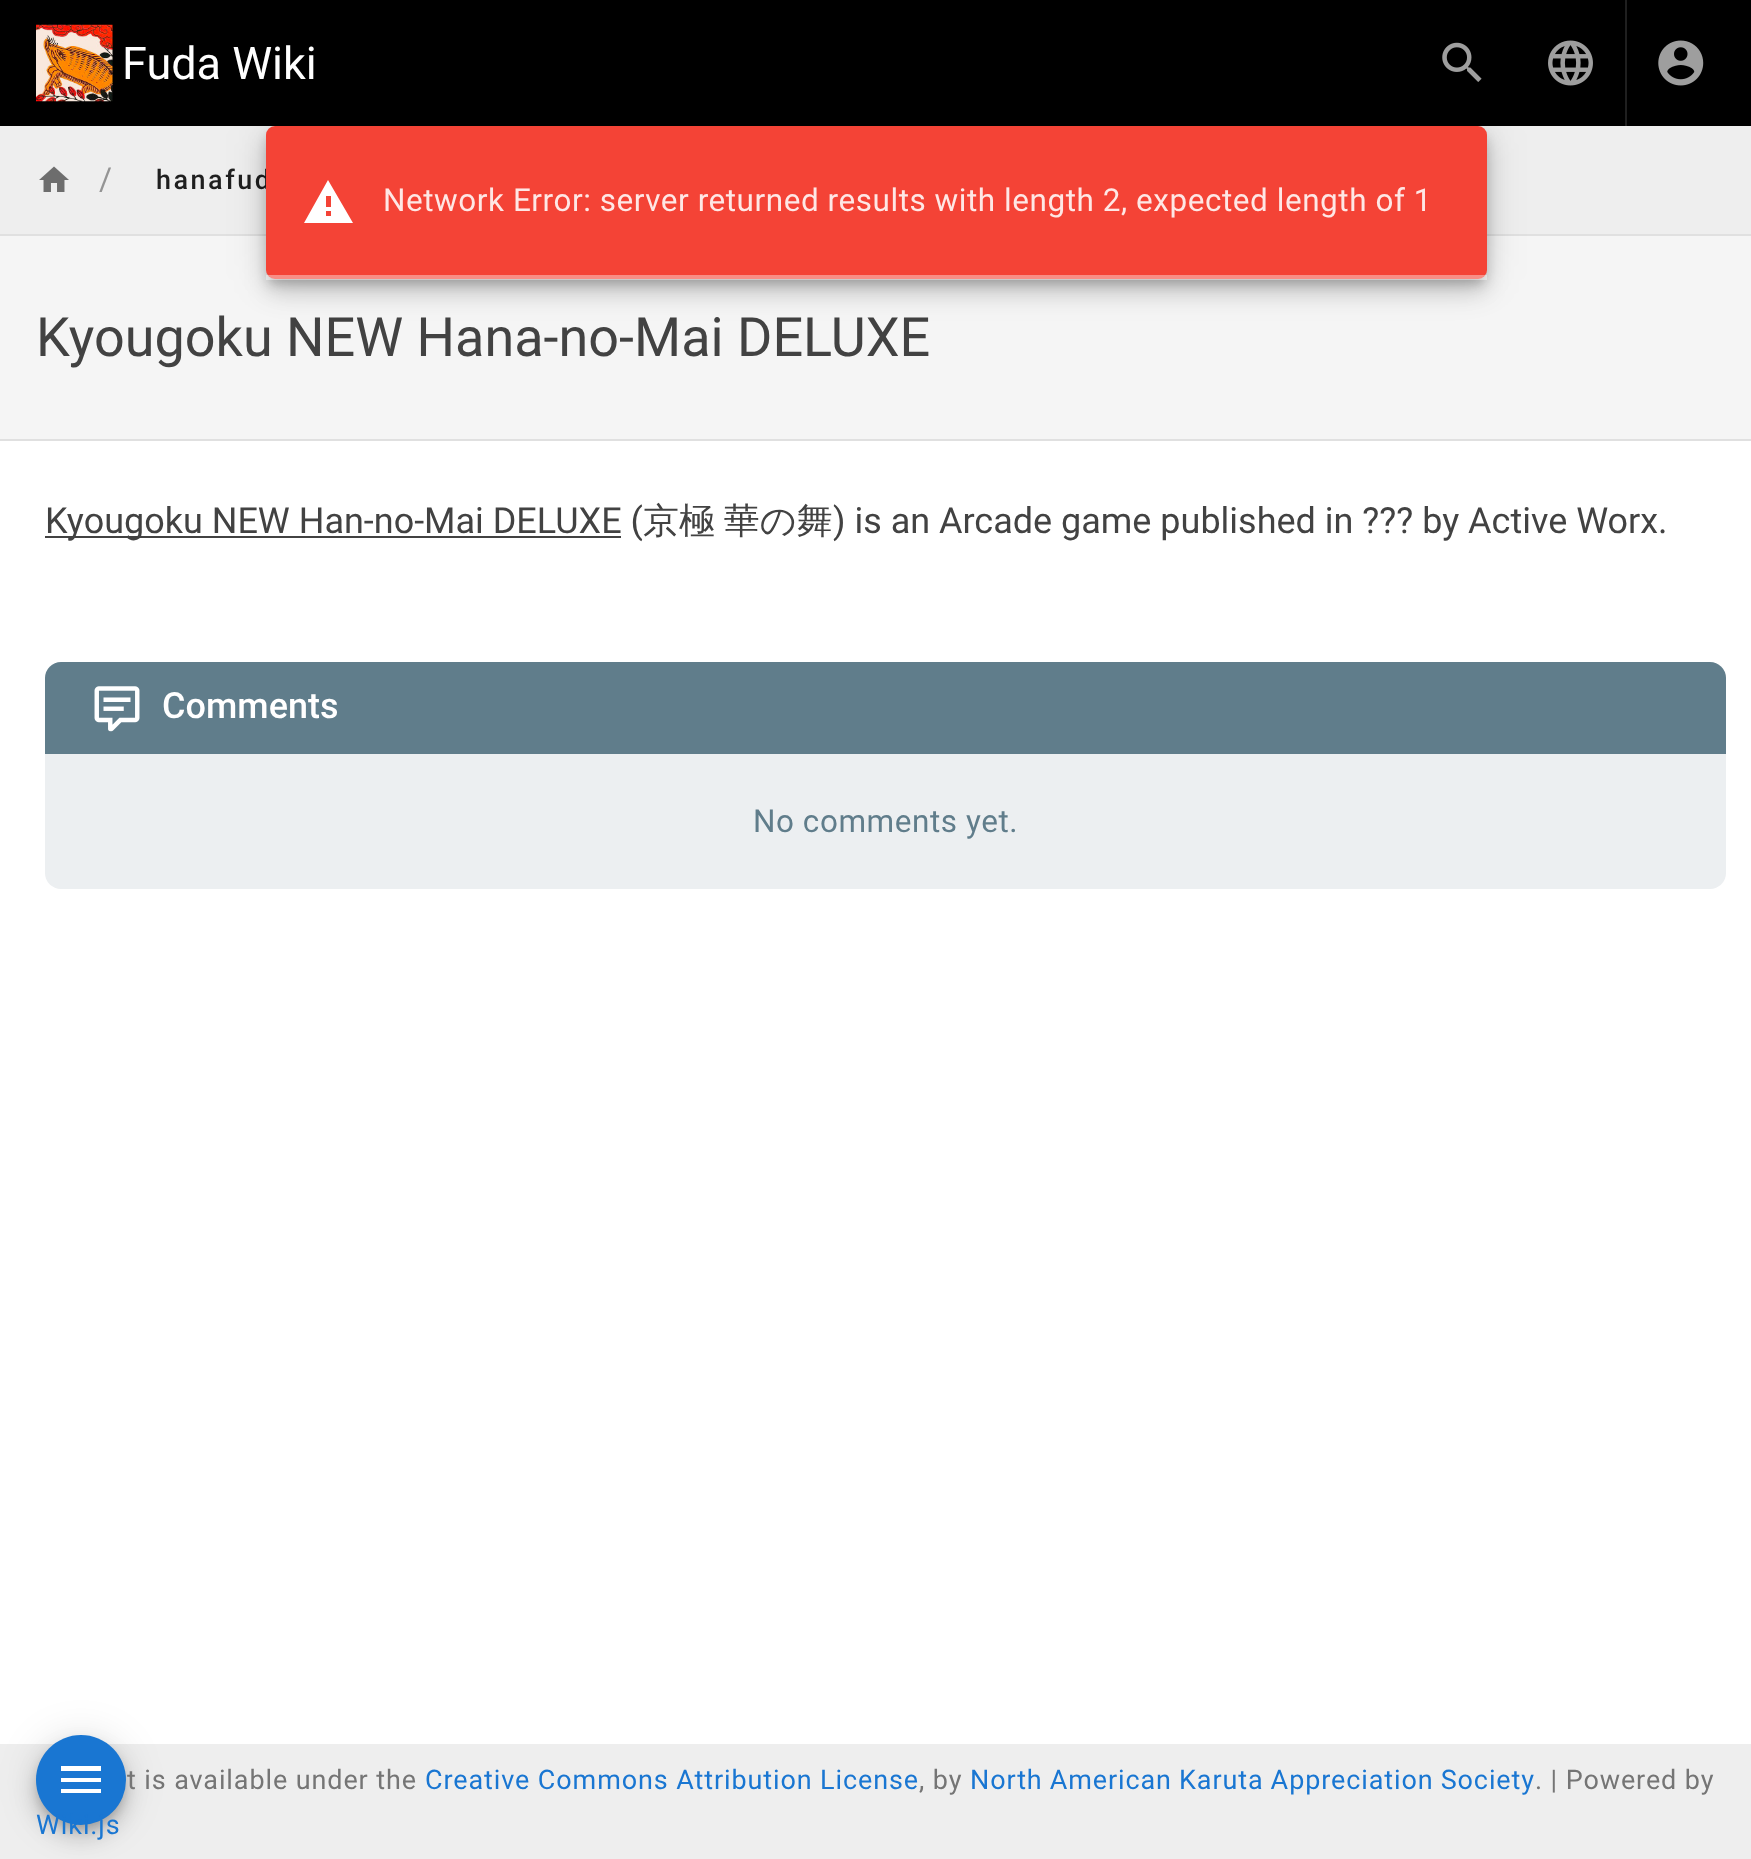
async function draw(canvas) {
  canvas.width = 1751
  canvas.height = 1859
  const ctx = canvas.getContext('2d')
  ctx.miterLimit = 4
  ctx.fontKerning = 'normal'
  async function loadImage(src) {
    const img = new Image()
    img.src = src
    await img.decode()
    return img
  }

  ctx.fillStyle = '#fff'
  ctx.fillRect(0, 0, 1751, 1859)
  ctx.fillStyle = '#000'
  ctx.fillRect(0, 0, 1751, 126)
  ctx.drawImage(await loadImage('image0.png'), 36, 24, 77, 78)
  ctx.font = '45px Roboto'
  ctx.fillStyle = '#fff'
  ctx.fillText('Fuda Wiki', 122, 79)
  ctx.drawImage(await loadImage('image1.png'), 1442, 42, 40, 40)
  ctx.drawImage(await loadImage('image2.png'), 1548, 40, 45, 46)
  ctx.fillStyle = '#1f1f1f'
  ctx.fillRect(1625, 0, 2, 126)
  ctx.drawImage(await loadImage('image3.png'), 1658, 40, 46, 46)
  ctx.fillStyle = '#eee'
  ctx.fillRect(0, 126, 1751, 108)
  ctx.drawImage(await loadImage('image4.png'), 39, 166, 30, 26)
  ctx.font = '31.5px Roboto'
  ctx.fillStyle = '#949494'
  ctx.fillText('/', 99, 190)
  ctx.letterSpacing = '2.5px'
  ctx.font = '500 27px Roboto'
  ctx.fillStyle = '#1f1f1f'
  ctx.fillText('hanafud', 156, 189)
  ctx.fillStyle = '#e0e0e0'
  ctx.fillRect(0, 234, 1751, 2)
  ctx.fillStyle = '#f5f5f5'
  ctx.fillRect(0, 236, 1751, 203)
  ctx.letterSpacing = '0px'
  ctx.font = '54px Roboto'
  ctx.fillStyle = '#424242'
  ctx.fillText('Kyougoku NEW Hana-no-Mai DELUXE', 36, 356)
  ctx.fillStyle = '#e0e0e0'
  ctx.fillRect(0, 439, 1751, 2)
  ctx.fillStyle = '#424242'
  ctx.fillRect(45, 536, 576, 2)
  ctx.font = '36px Roboto'
  ctx.fillText('Kyougoku NEW Han-no-Mai DELUXE (', 45, 533)
  ctx.wordSpacing = '-2px'
  ctx.font = '500 36px WenQuanYi Zen Hei'
  ctx.fillText('京極 華の舞', 643, 533)
  ctx.wordSpacing = '0px'
  ctx.font = '36px Roboto'
  ctx.fillText(') is an Arcade game published in ??? by Active Worx.', 833, 533)
  ctx.fillStyle = '#607d8b'
  ctx.beginPath()
  ctx.roundRect(45, 662, 1681, 92, [16, 16, 0, 0])
  ctx.fill()
  ctx.drawImage(await loadImage('image5.png'), 94, 686, 46, 46)
  ctx.font = '500 36px Roboto'
  ctx.fillStyle = '#fff'
  ctx.fillText('Comments', 162, 718)
  ctx.fillStyle = '#eceff1'
  ctx.beginPath()
  ctx.roundRect(45, 754, 1681, 135, [0, 0, 16, 16])
  ctx.fill()
  ctx.letterSpacing = '0.55px'
  ctx.font = '31.5px Roboto'
  ctx.fillStyle = '#607d8b'
  ctx.fillText('No comments yet.', 753, 832)
  ctx.fillStyle = '#0000001f'
  ctx.filter = 'blur(20px)'
  ctx.beginPath()
  ctx.roundRect(266, 128, 1221, 153, 9)
  ctx.fill()
  ctx.filter = 'none'
  ctx.fillStyle = '#00000024'
  ctx.filter = 'blur(11px)'
  ctx.beginPath()
  ctx.roundRect(266, 140, 1221, 153, 9)
  ctx.fill()
  ctx.filter = 'none'
  ctx.fillStyle = '#00000033'
  ctx.filter = 'blur(5.5px)'
  ctx.beginPath()
  ctx.roundRect(268, 135, 1217, 149, 7)
  ctx.fill()
  ctx.filter = 'none'
  ctx.fillStyle = '#f44336'
  ctx.beginPath()
  ctx.roundRect(266, 126, 1221, 153, 9)
  ctx.fill()
  ctx.fillStyle = '#fff'
  ctx.beginPath()
  ctx.moveTo(331, 207)
  ctx.lineTo(326, 207)
  ctx.lineTo(326, 196)
  ctx.lineTo(331, 196)
  ctx.closePath()
  ctx.moveTo(331, 216)
  ctx.lineTo(326, 216)
  ctx.lineTo(326, 211)
  ctx.lineTo(331, 211)
  ctx.closePath()
  ctx.moveTo(304, 223)
  ctx.lineTo(353, 223)
  ctx.lineTo(328, 180)
  ctx.closePath()
  ctx.fill()
  ctx.fillStyle = '#fee7e5'
  ctx.fillText('Network Error: server returned results with length 2, expected length of 1', 383, 211)
  ctx.fillStyle = '#ffffff66'
  ctx.fillRect(266, 275, 1221, 5)
  ctx.fillStyle = '#eee'
  ctx.fillRect(0, 1744, 1751, 115)
  ctx.fillStyle = '#0000001f'
  ctx.filter = 'blur(20px)'
  ctx.beginPath()
  ctx.roundRect(36, 1737, 90, 90, 45)
  ctx.fill()
  ctx.filter = 'none'
  ctx.fillStyle = '#00000024'
  ctx.filter = 'blur(11px)'
  ctx.beginPath()
  ctx.roundRect(36, 1748, 90, 90, 45)
  ctx.fill()
  ctx.filter = 'none'
  ctx.fillStyle = '#00000033'
  ctx.filter = 'blur(5.5px)'
  ctx.beginPath()
  ctx.roundRect(38, 1744, 86, 85, 42.5)
  ctx.fill()
  ctx.filter = 'none'
  ctx.fillStyle = '#1976d2'
  ctx.beginPath()
  ctx.arc(81, 1780, 45, 0, 2 * Math.PI)
  ctx.fill()
  ctx.fillStyle = '#fff'
  ctx.beginPath()
  ctx.moveTo(61, 1766)
  ctx.lineTo(101, 1766)
  ctx.lineTo(101, 1771)
  ctx.lineTo(61, 1771)
  ctx.closePath()
  ctx.moveTo(61, 1778)
  ctx.lineTo(101, 1778)
  ctx.lineTo(101, 1782)
  ctx.lineTo(61, 1782)
  ctx.closePath()
  ctx.moveTo(61, 1789)
  ctx.lineTo(101, 1789)
  ctx.lineTo(101, 1793)
  ctx.lineTo(61, 1793)
  ctx.closePath()
  ctx.fill()
  ctx.letterSpacing = '0.9px'
  ctx.font = '27px Roboto'
  ctx.fillStyle = '#757575'
  ctx.fillText('t is available under the', 127, 1789)
  ctx.fillStyle = '#1976d2'
  ctx.fillText('Creative Commons Attribution License', 425, 1789)
  ctx.fillStyle = '#757575'
  ctx.fillText(', by', 919, 1789)
  ctx.wordSpacing = '-0.5px'
  ctx.fillStyle = '#1976d2'
  ctx.fillText('North American Karuta Appreciation Society', 970, 1789)
  ctx.wordSpacing = '0px'
  ctx.fillStyle = '#757575'
  ctx.fillText('. | Powered by', 1535, 1789)
  ctx.fillStyle = '#1976d2'
  ctx.fillText('Wiki.js', 36, 1834)
}

draw(document.querySelector('canvas'))
